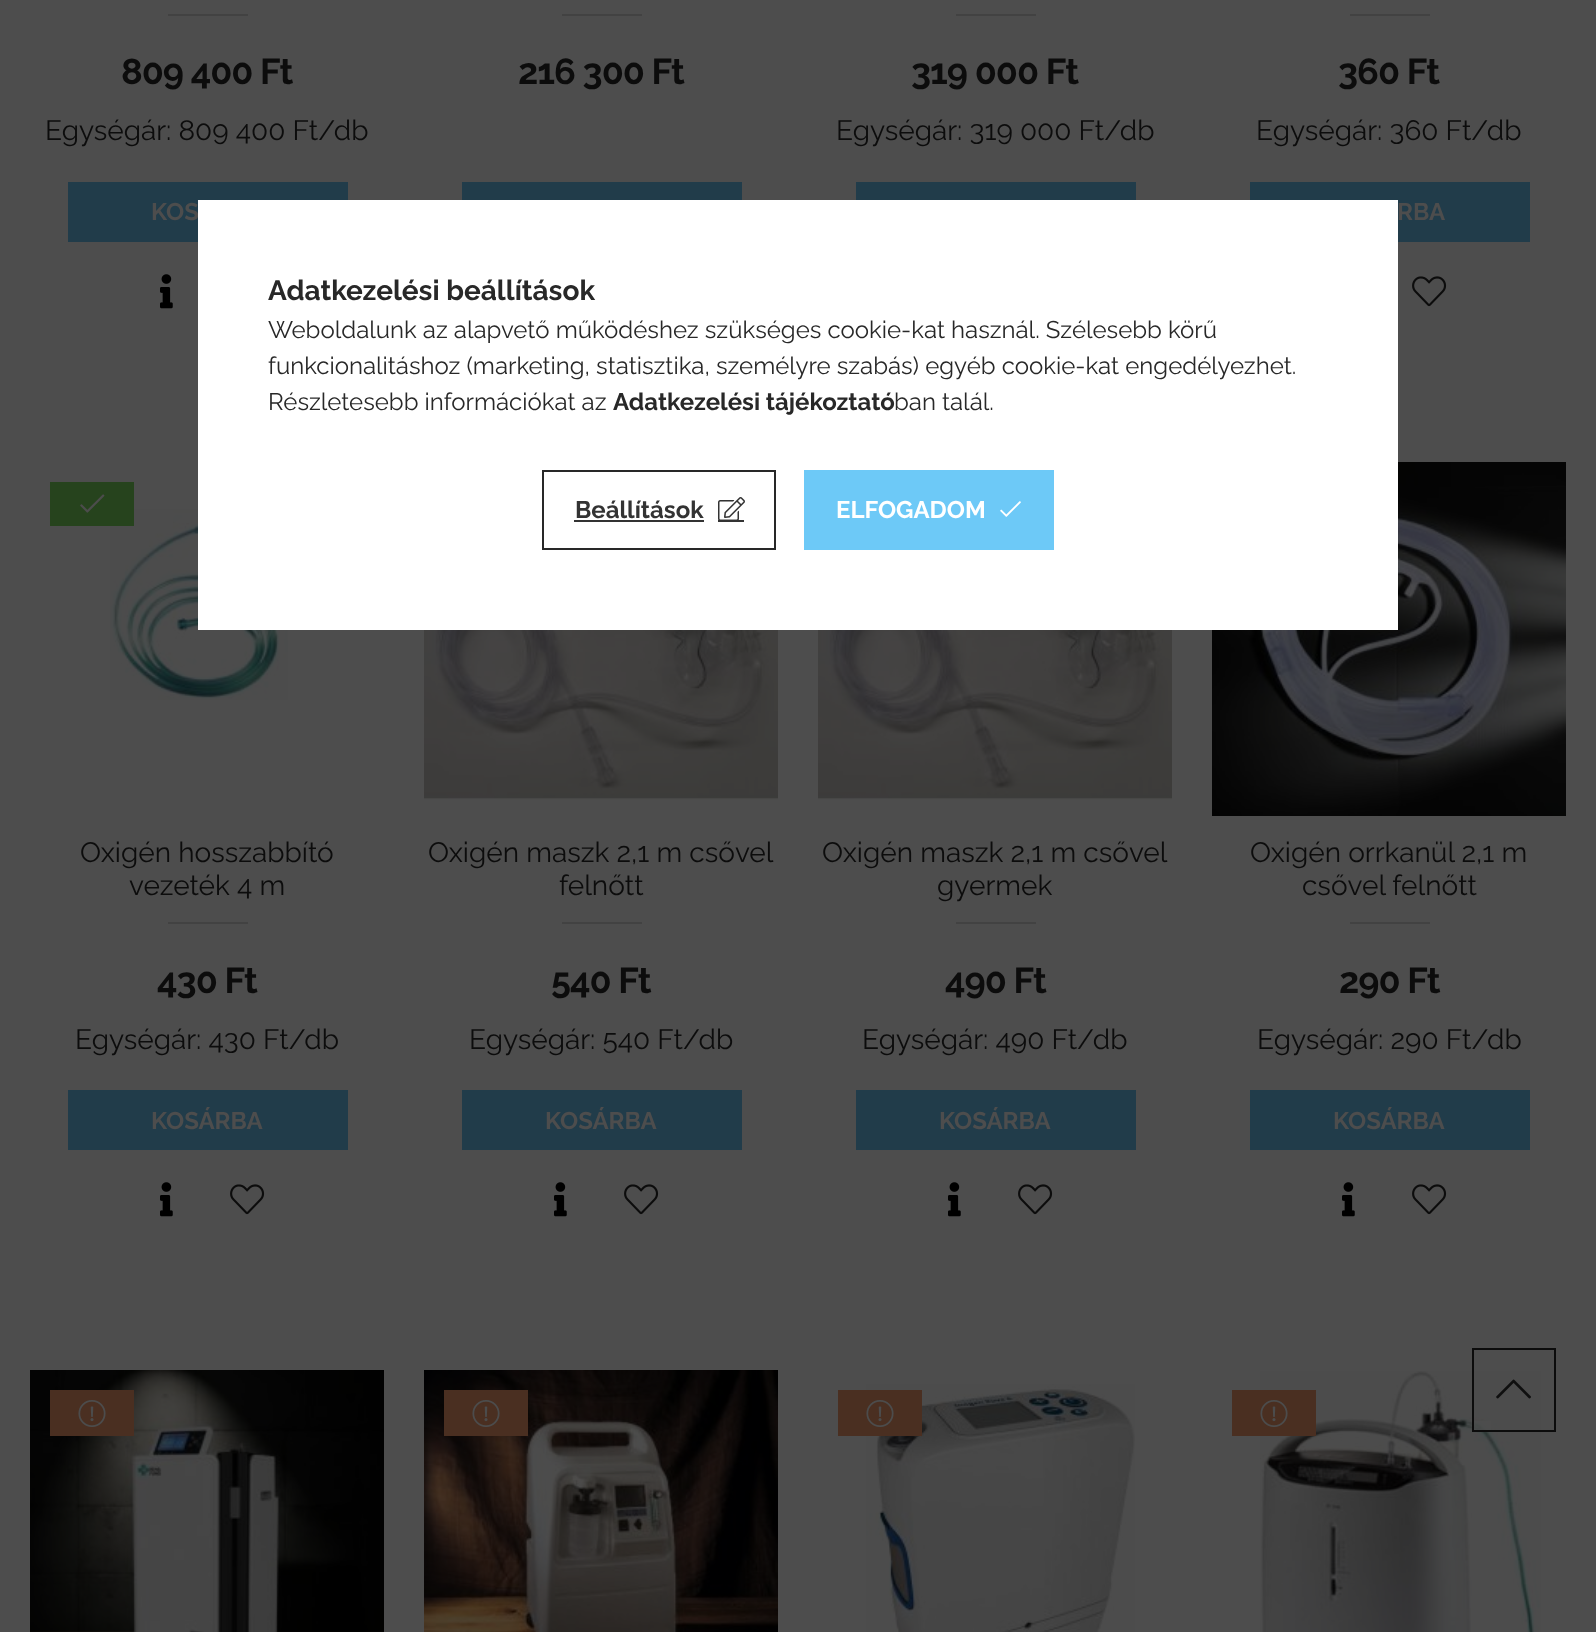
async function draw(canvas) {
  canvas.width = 1596
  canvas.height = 1632
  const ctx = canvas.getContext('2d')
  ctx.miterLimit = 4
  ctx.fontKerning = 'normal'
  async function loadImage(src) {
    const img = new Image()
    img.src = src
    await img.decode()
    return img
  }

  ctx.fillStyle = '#4d4d4d'
  ctx.fillRect(0, 0, 1596, 1632)
  ctx.fillStyle = '#424242'
  ctx.fillRect(168, 14, 80, 2)
  ctx.letterSpacing = '-1px'
  ctx.font = 'bold 36px Raleway'
  ctx.fillStyle = '#0c0c0c'
  ctx.fillText('809 400 Ft', 121, 84)
  ctx.letterSpacing = '0px'
  ctx.font = '28px Raleway'
  ctx.fillText('Egységár: 809 400 Ft/db', 45, 140)
  ctx.fillStyle = '#213c4a'
  ctx.fillRect(68, 182, 280, 60)
  ctx.font = 'bold 24px Raleway'
  ctx.fillStyle = '#4d4d4d'
  ctx.fillText('KOS', 151, 220)
  ctx.drawImage(await loadImage('image0.png'), 160, 274, 13, 35)
  ctx.fillStyle = '#424242'
  ctx.fillRect(562, 14, 80, 2)
  ctx.letterSpacing = '-1px'
  ctx.font = 'bold 36px Raleway'
  ctx.fillStyle = '#0c0c0c'
  ctx.fillText('216 300 Ft', 518, 84)
  ctx.fillStyle = '#213c4a'
  ctx.fillRect(462, 182, 280, 18)
  ctx.fillStyle = '#424242'
  ctx.fillRect(956, 14, 80, 2)
  ctx.fillStyle = '#0c0c0c'
  ctx.fillText('319 000 Ft', 911, 84)
  ctx.letterSpacing = '0px'
  ctx.font = '28px Raleway'
  ctx.fillText('Egységár: 319 000 Ft/db', 836, 140)
  ctx.fillStyle = '#213c4a'
  ctx.fillRect(856, 182, 280, 18)
  ctx.fillStyle = '#424242'
  ctx.fillRect(1350, 14, 80, 2)
  ctx.letterSpacing = '-1px'
  ctx.font = 'bold 36px Raleway'
  ctx.fillStyle = '#0c0c0c'
  ctx.fillText('360 Ft', 1338, 84)
  ctx.letterSpacing = '0px'
  ctx.font = '28px Raleway'
  ctx.fillText('Egységár: 360 Ft/db', 1256, 140)
  ctx.fillStyle = '#213c4a'
  ctx.fillRect(1250, 182, 280, 60)
  ctx.font = 'bold 24px Raleway'
  ctx.fillStyle = '#4d4d4d'
  ctx.fillText('RBA', 1397, 220)
  ctx.drawImage(await loadImage('image1.png'), 1412, 276, 35, 31)
  ctx.drawImage(await loadImage('image3.png'), 110, 509, 178, 191)
  ctx.fillStyle = '#26431d'
  ctx.fillRect(50, 482, 84, 44)
  ctx.drawImage(await loadImage('image2.png'), 80, 494, 25, 19)
  ctx.font = '28px Raleway'
  ctx.fillStyle = '#0c0c0c'
  ctx.fillText('Oxigén hosszabbító', 80, 862)
  ctx.fillText('vezeték 4 m', 129, 895)
  ctx.fillStyle = '#424242'
  ctx.fillRect(168, 922, 80, 2)
  ctx.letterSpacing = '-1px'
  ctx.font = 'bold 36px Raleway'
  ctx.fillStyle = '#0c0c0c'
  ctx.fillText('430 Ft', 157, 993)
  ctx.letterSpacing = '0px'
  ctx.font = '28px Raleway'
  ctx.fillText('Egységár: 430 Ft/db', 75, 1049)
  ctx.fillStyle = '#213c4a'
  ctx.fillRect(68, 1090, 280, 60)
  ctx.font = 'bold 24px Raleway'
  ctx.fillStyle = '#4d4d4d'
  ctx.fillText('KOSÁRBA', 151, 1129)
  ctx.drawImage(await loadImage('image0.png'), 160, 1182, 13, 35)
  ctx.drawImage(await loadImage('image1.png'), 230, 1184, 35, 31)
  ctx.drawImage(await loadImage('image4.png'), 424, 630, 354, 170)
  ctx.font = '28px Raleway'
  ctx.fillStyle = '#0c0c0c'
  ctx.fillText('Oxigén maszk 2,1 m csővel', 428, 862)
  ctx.fillText('felnőtt', 559, 895)
  ctx.fillStyle = '#424242'
  ctx.fillRect(562, 922, 80, 2)
  ctx.letterSpacing = '-1px'
  ctx.font = 'bold 36px Raleway'
  ctx.fillStyle = '#0c0c0c'
  ctx.fillText('540 Ft', 551, 993)
  ctx.letterSpacing = '0px'
  ctx.font = '28px Raleway'
  ctx.fillText('Egységár: 540 Ft/db', 469, 1049)
  ctx.fillStyle = '#213c4a'
  ctx.fillRect(462, 1090, 280, 60)
  ctx.font = 'bold 24px Raleway'
  ctx.fillStyle = '#4d4d4d'
  ctx.fillText('KOSÁRBA', 545, 1129)
  ctx.drawImage(await loadImage('image0.png'), 554, 1182, 13, 35)
  ctx.drawImage(await loadImage('image1.png'), 624, 1184, 35, 31)
  ctx.drawImage(await loadImage('image4.png'), 818, 630, 354, 170)
  ctx.font = '28px Raleway'
  ctx.fillStyle = '#0c0c0c'
  ctx.fillText('Oxigén maszk 2,1 m csővel', 822, 862)
  ctx.fillText('gyermek', 937, 895)
  ctx.fillStyle = '#424242'
  ctx.fillRect(956, 922, 80, 2)
  ctx.letterSpacing = '-1px'
  ctx.font = 'bold 36px Raleway'
  ctx.fillStyle = '#0c0c0c'
  ctx.fillText('490 Ft', 945, 993)
  ctx.letterSpacing = '0px'
  ctx.font = '28px Raleway'
  ctx.fillText('Egységár: 490 Ft/db', 862, 1049)
  ctx.fillStyle = '#213c4a'
  ctx.fillRect(856, 1090, 280, 60)
  ctx.font = 'bold 24px Raleway'
  ctx.fillStyle = '#4d4d4d'
  ctx.fillText('KOSÁRBA', 939, 1129)
  ctx.drawImage(await loadImage('image0.png'), 948, 1182, 13, 35)
  ctx.drawImage(await loadImage('image1.png'), 1018, 1184, 35, 31)
  ctx.drawImage(await loadImage('image5.png'), 1212, 462, 354, 354)
  ctx.font = '28px Raleway'
  ctx.fillStyle = '#0c0c0c'
  ctx.fillText('Oxigén orrkanül 2,1 m', 1250, 862)
  ctx.fillText('csővel felnőtt', 1302, 895)
  ctx.fillStyle = '#424242'
  ctx.fillRect(1350, 922, 80, 2)
  ctx.letterSpacing = '-1px'
  ctx.font = 'bold 36px Raleway'
  ctx.fillStyle = '#0c0c0c'
  ctx.fillText('290 Ft', 1339, 993)
  ctx.letterSpacing = '0px'
  ctx.font = '28px Raleway'
  ctx.fillText('Egységár: 290 Ft/db', 1257, 1049)
  ctx.fillStyle = '#213c4a'
  ctx.fillRect(1250, 1090, 280, 60)
  ctx.font = 'bold 24px Raleway'
  ctx.fillStyle = '#4d4d4d'
  ctx.fillText('KOSÁRBA', 1333, 1129)
  ctx.drawImage(await loadImage('image0.png'), 1342, 1182, 13, 35)
  ctx.drawImage(await loadImage('image1.png'), 1412, 1184, 35, 31)
  ctx.drawImage(await loadImage('image6.png'), 30, 1370, 354, 262)
  ctx.fillStyle = '#4a2f21'
  ctx.fillRect(50, 1390, 84, 46)
  ctx.drawImage(await loadImage('image7.png'), 78, 1400, 28, 27)
  ctx.drawImage(await loadImage('image8.png'), 424, 1370, 354, 262)
  ctx.fillRect(444, 1390, 84, 46)
  ctx.drawImage(await loadImage('image7.png'), 472, 1400, 28, 27)
  ctx.drawImage(await loadImage('image9.png'), 866, 1384, 269, 248)
  ctx.fillRect(838, 1390, 84, 46)
  ctx.drawImage(await loadImage('image7.png'), 866, 1400, 28, 27)
  ctx.drawImage(await loadImage('image10.png'), 1260, 1371, 281, 261)
  ctx.fillRect(1232, 1390, 84, 46)
  ctx.drawImage(await loadImage('image7.png'), 1260, 1400, 28, 27)
  ctx.fillStyle = '#fff'
  ctx.fillRect(198, 200, 1200, 430)
  ctx.font = 'bold 28px Raleway'
  ctx.fillStyle = '#282828'
  ctx.fillText('Adatkezelési beállítások', 268, 300)
  ctx.font = '24px Raleway'
  ctx.fillText('Weboldalunk az alapvető működéshez szükséges cookie-kat használ. Szélesebb körű', 268, 338)
  ctx.fillText('funkcionalitáshoz (marketing, statisztika, személyre szabás) egyéb cookie-kat engedélyezhet.', 268, 374)
  ctx.fillText('Részletesebb információkat az', 268, 410)
  ctx.font = 'bold 24px Raleway'
  ctx.fillText('Adatkezelési tájékoztató', 613, 410)
  ctx.font = '24px Raleway'
  ctx.fillText('ban talál.', 894, 410)
  ctx.strokeStyle = '#282828'
  ctx.lineWidth = 2
  ctx.strokeRect(543, 471, 232, 78)
  ctx.font = 'bold 24px Raleway'
  ctx.fillStyle = '#333'
  ctx.fillText('Beállítások', 575, 518)
  ctx.fillRect(574, 520, 130, 2)
  ctx.drawImage(await loadImage('image11.png'), 718, 497, 27, 23)
  ctx.fillRect(718, 520, 26, 2)
  ctx.fillStyle = '#6dc9f7'
  ctx.fillRect(804, 470, 250, 80)
  ctx.fillStyle = '#fff'
  ctx.fillText('ELFOGADOM', 836, 518)
  ctx.drawImage(await loadImage('image12.png'), 1000, 501, 21, 16)
  ctx.fillStyle = '#4d4d4dcc'
  ctx.fillRect(1474, 1421, 17, 9)
  ctx.strokeStyle = '#0c0c0c'
  ctx.strokeRect(1473, 1349, 82, 82)
  ctx.drawImage(await loadImage('image13.png'), 1496, 1379, 35, 20)
}

draw(document.querySelector('canvas'))
